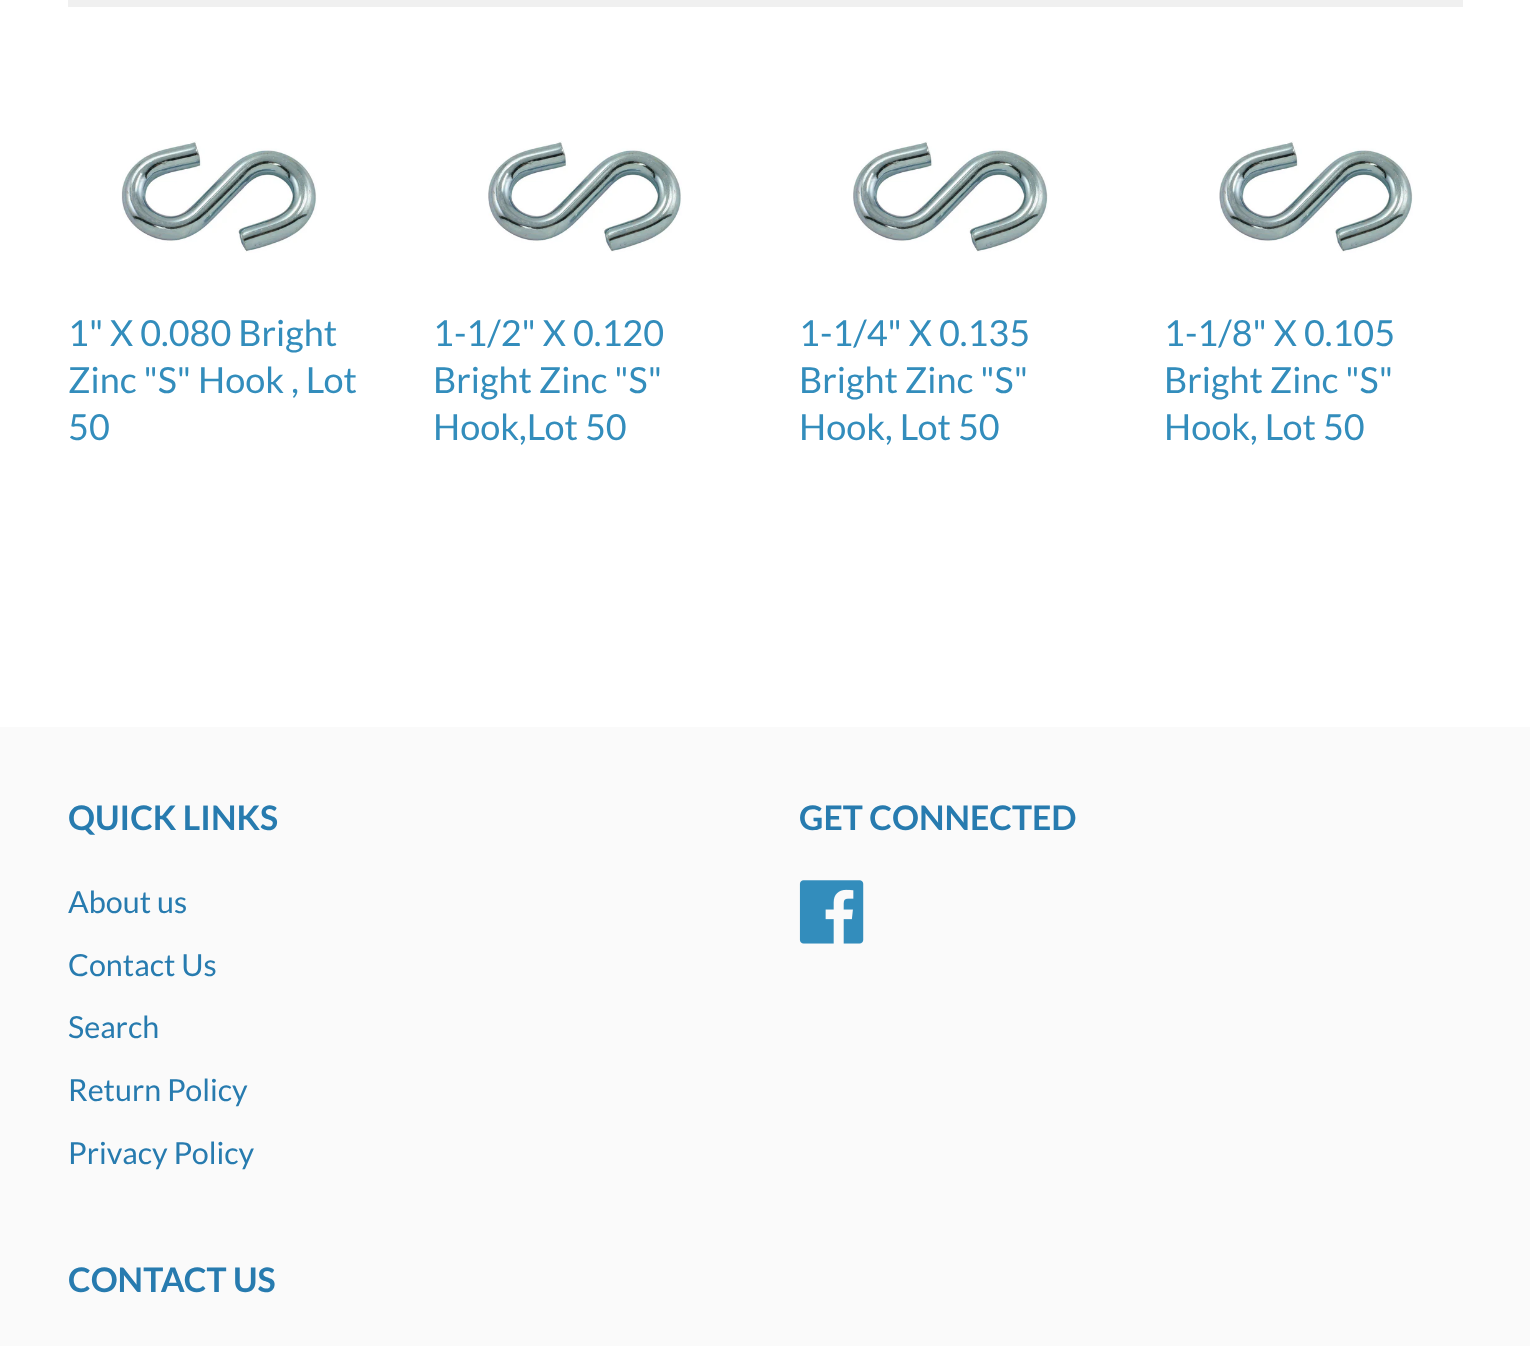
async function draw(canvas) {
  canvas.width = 1530
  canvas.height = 1346
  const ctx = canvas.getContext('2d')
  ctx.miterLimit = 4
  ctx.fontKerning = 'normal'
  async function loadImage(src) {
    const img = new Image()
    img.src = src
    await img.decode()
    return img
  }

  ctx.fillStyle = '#fff'
  ctx.fillRect(0, 0, 1530, 1346)
  ctx.fillStyle = '#f0f0f0'
  ctx.fillRect(68, 0, 1395, 7)
  ctx.drawImage(await loadImage('image0.png'), 121, 141, 196, 112)
  ctx.font = '36px Lato'
  ctx.fillStyle = '#338dbc'
  ctx.fillText('1" X 0.080 Bright', 68, 346)
  ctx.fillText('Zinc "S" Hook , Lot', 68, 393)
  ctx.fillText('50', 68, 440)
  ctx.drawImage(await loadImage('image1.png'), 488, 141, 194, 111)
  ctx.fillText('1-1/2" X 0.120', 433, 346)
  ctx.fillText('Bright Zinc "S"', 433, 393)
  ctx.fillText('Hook,Lot 50', 433, 440)
  ctx.drawImage(await loadImage('image2.png'), 853, 141, 195, 111)
  ctx.fillText('1-1/4" X 0.135', 799, 346)
  ctx.fillText('Bright Zinc "S"', 799, 393)
  ctx.fillText('Hook, Lot 50', 799, 440)
  ctx.drawImage(await loadImage('image3.png'), 1219, 141, 194, 112)
  ctx.fillText('1-1/8" X 0.105', 1164, 346)
  ctx.fillText('Bright Zinc "S"', 1164, 393)
  ctx.fillText('Hook, Lot 50', 1164, 440)
  ctx.fillStyle = '#fafafa'
  ctx.fillRect(0, 727, 1530, 619)
  ctx.font = 'bold 33.75px Lato'
  ctx.fillStyle = '#277baf'
  ctx.fillText('QUICK LINKS', 68, 830)
  ctx.font = '30.5px Lato'
  ctx.fillText('About us', 68, 913)
  ctx.fillText('Contact Us', 68, 976)
  ctx.fillText('Search', 68, 1038)
  ctx.fillText('Return Policy', 68, 1101)
  ctx.fillText('Privacy Policy', 68, 1164)
  ctx.font = 'bold 33.75px Lato'
  ctx.fillText('GET CONNECTED', 799, 830)
  ctx.drawImage(await loadImage('image4.png'), 799, 880, 65, 64)
  ctx.fillText('CONTACT US', 68, 1292)
}

draw(document.querySelector('canvas'))
